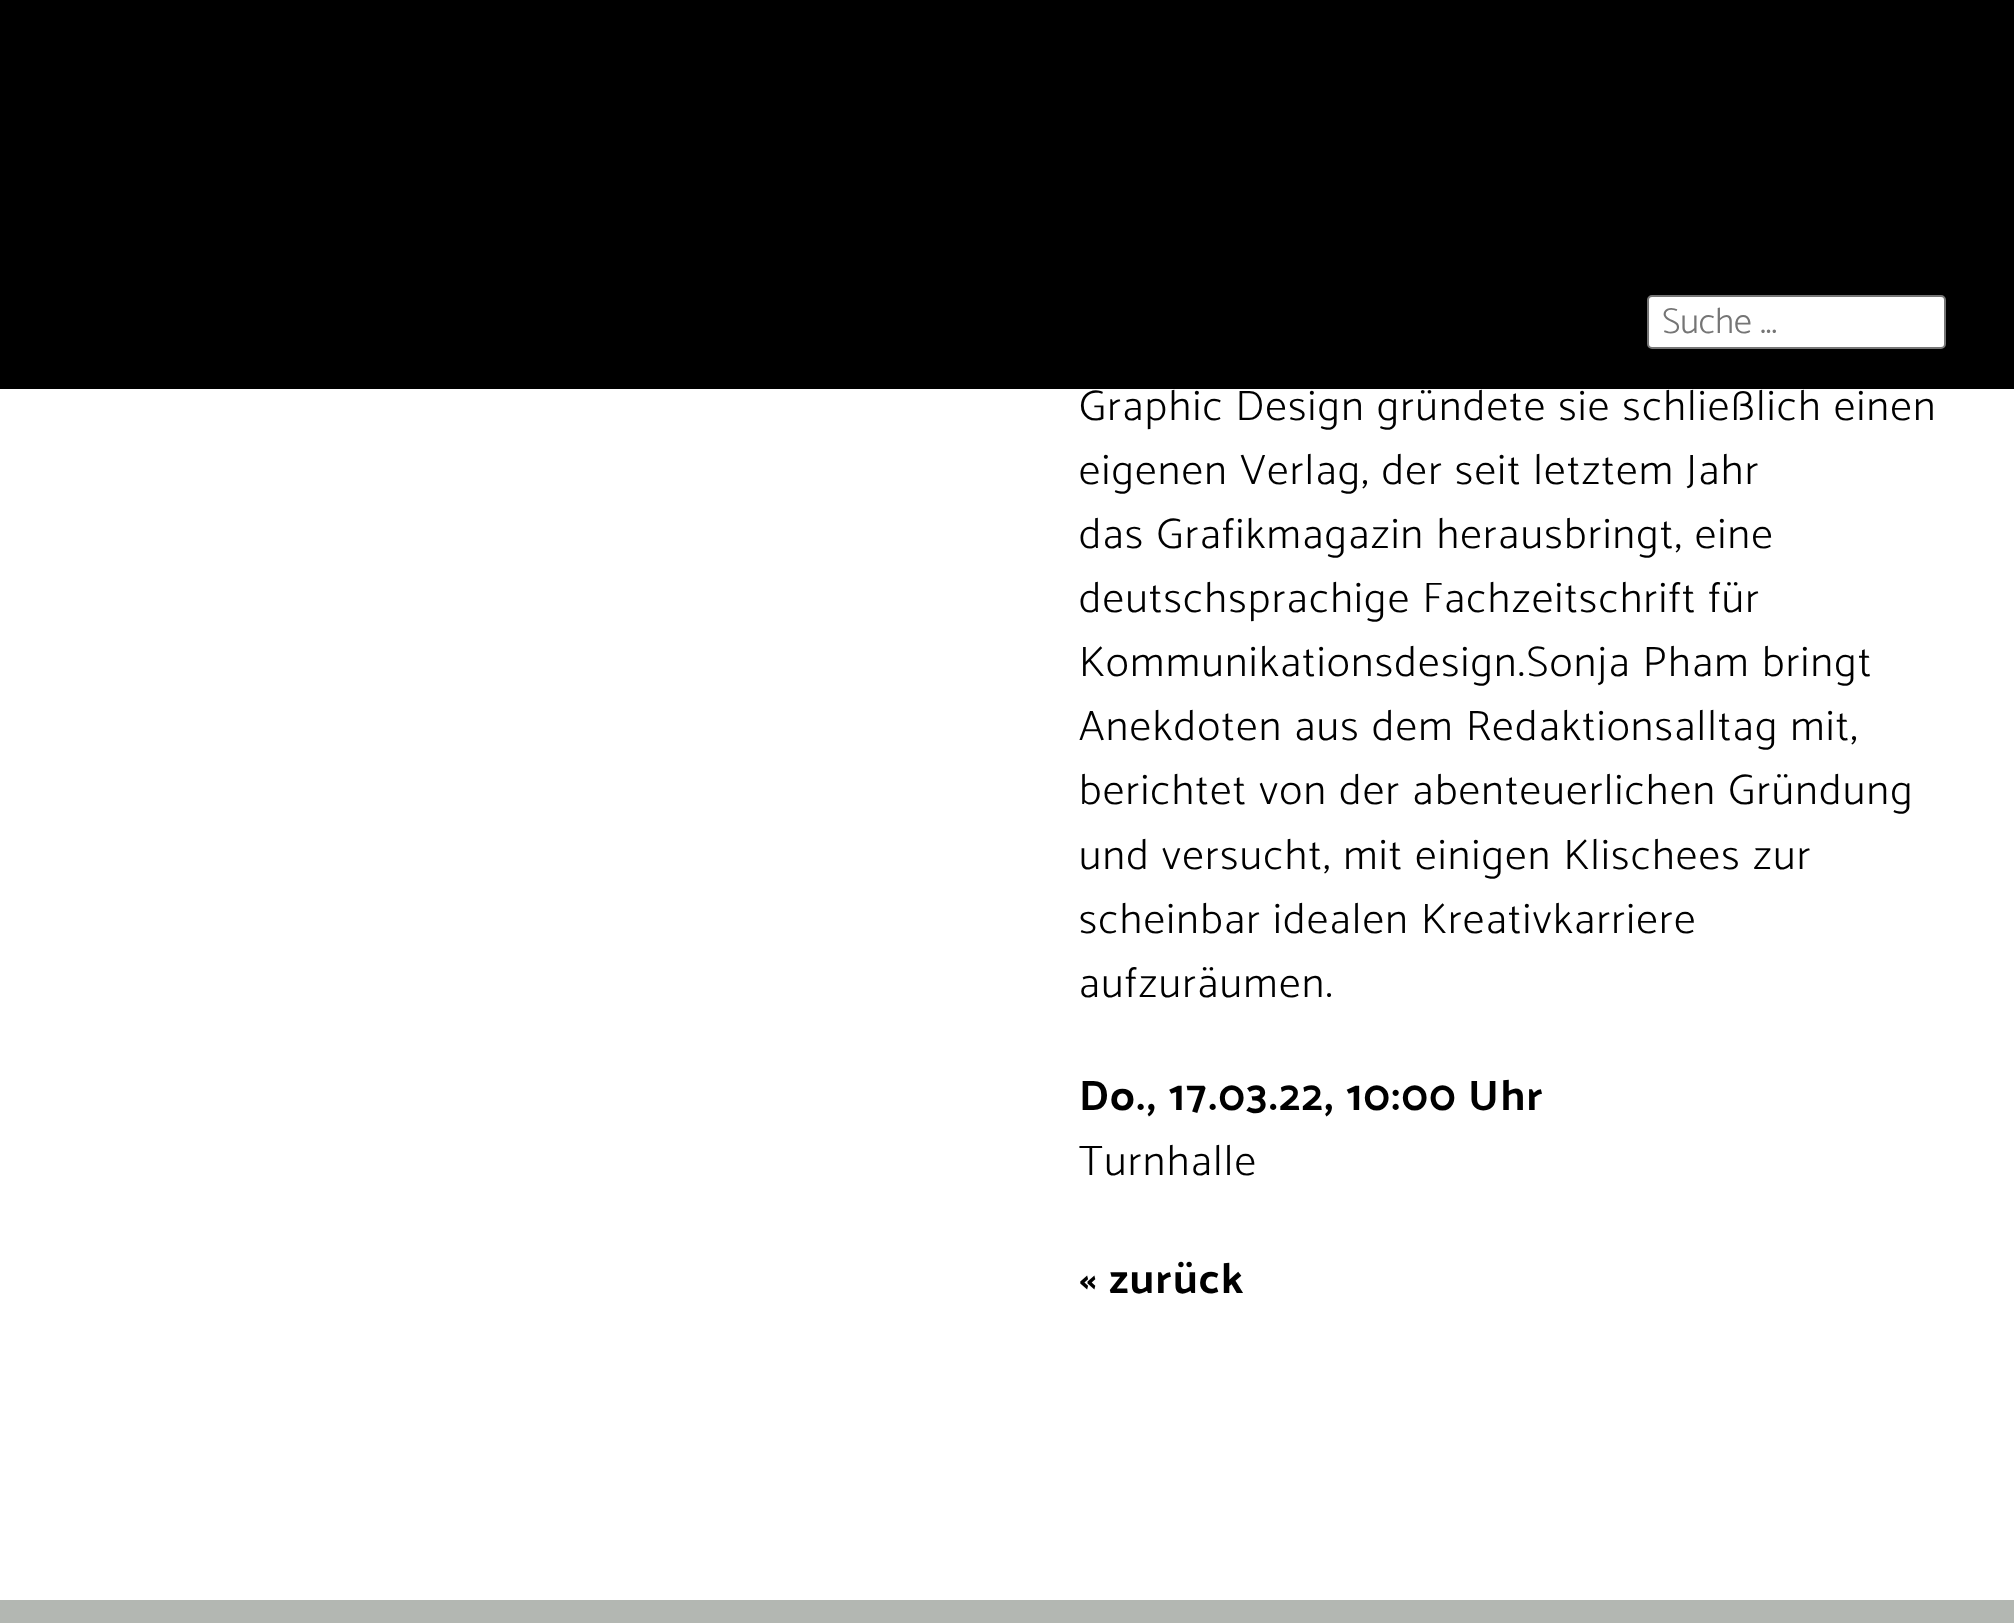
async function draw(canvas) {
  canvas.width = 2014
  canvas.height = 1623
  const ctx = canvas.getContext('2d')
  ctx.miterLimit = 4
  ctx.fontKerning = 'normal'

  ctx.fillStyle = '#fff'
  ctx.fillRect(0, 0, 2014, 1623)
  ctx.fillStyle = '#000'
  ctx.fillRect(0, 0, 2014, 389)
  ctx.fillStyle = '#fff'
  ctx.beginPath()
  ctx.roundRect(1648, 296, 297, 52, 4)
  ctx.fill()
  ctx.strokeStyle = '#767676'
  ctx.lineWidth = 2
  ctx.stroke()
  ctx.font = '300 36px Catamaran'
  ctx.fillStyle = '#757575'
  ctx.fillText('Suche ...', 1662, 333)
  ctx.letterSpacing = '1.7px'
  ctx.font = '300 42.75px Catamaran'
  ctx.fillStyle = '#000'
  ctx.fillText('Graphic Design gründete sie schließlich einen', 1079, 420)
  ctx.fillText('eigenen Verlag, der seit letztem Jahr', 1079, 484)
  ctx.fillText('das Grafikmagazin herausbringt, eine', 1079, 548)
  ctx.fillText('deutschsprachige Fachzeitschrift für', 1079, 612)
  ctx.fillText('Kommunikationsdesign.Sonja Pham bringt', 1079, 676)
  ctx.fillText('Anekdoten aus dem Redaktionsalltag mit,', 1079, 740)
  ctx.fillText('berichtet von der abenteuerlichen Gründung', 1079, 804)
  ctx.fillText('und versucht, mit einigen Klischees zur', 1079, 869)
  ctx.fillText('scheinbar idealen Kreativkarriere', 1079, 933)
  ctx.fillText('aufzuräumen.', 1079, 997)
  ctx.font = 'bold 42.75px Catamaran'
  ctx.fillText('Do., 17.03.22, 10:00 Uhr', 1079, 1110)
  ctx.font = '300 42.75px Catamaran'
  ctx.fillText('Turnhalle', 1079, 1175)
  ctx.font = 'bold 42.75px Catamaran'
  ctx.fillText('« zurück', 1079, 1293)
  ctx.fillStyle = '#b3b7b2'
  ctx.fillRect(0, 1600, 2014, 23)
}

draw(document.querySelector('canvas'))
